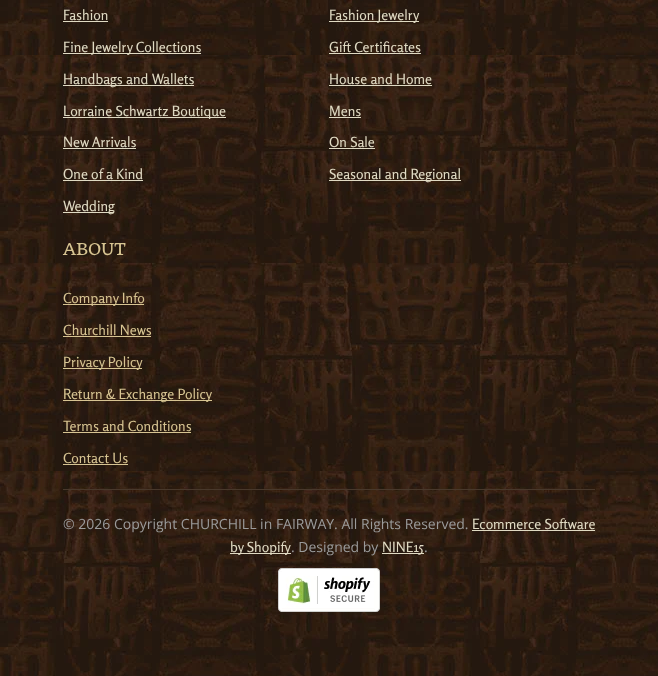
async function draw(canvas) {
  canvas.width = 658
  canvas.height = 676
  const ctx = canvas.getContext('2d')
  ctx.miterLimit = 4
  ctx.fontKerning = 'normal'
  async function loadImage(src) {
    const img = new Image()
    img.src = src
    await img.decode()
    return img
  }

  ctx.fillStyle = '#fff'
  ctx.fillRect(0, 0, 658, 676)
  ctx.drawImage(await loadImage('image0.png'), 0, 0, 658, 676)
  ctx.fillStyle = '#48382b'
  ctx.fillRect(63, 489, 532, 1)
  ctx.font = '14px Rosario'
  ctx.fillStyle = '#e0dac3'
  ctx.fillText('Fashion', 63, 20)
  ctx.fillRect(63, 21, 45, 1)
  ctx.fillRect(329, 21, 90, 1)
  ctx.fillText('Fashion Jewelry', 329, 20)
  ctx.fillRect(63, 53, 138, 1)
  ctx.fillText('Fine Jewelry Collections', 63, 52)
  ctx.fillText('Gift Certificates', 329, 52)
  ctx.fillRect(329, 53, 92, 1)
  ctx.fillRect(63, 85, 131, 1)
  ctx.fillText('Handbags and Wallets', 63, 84)
  ctx.fillText('House and Home', 329, 84)
  ctx.fillRect(329, 85, 103, 1)
  ctx.fillRect(63, 117, 163, 1)
  ctx.fillText('Lorraine Schwartz Boutique', 63, 116)
  ctx.fillText('Mens', 329, 116)
  ctx.fillRect(329, 117, 32, 1)
  ctx.fillText('New Arrivals', 63, 147)
  ctx.fillRect(63, 148, 73, 1)
  ctx.fillText('On Sale', 329, 147)
  ctx.fillRect(329, 148, 46, 1)
  ctx.fillText('One of a Kind', 63, 179)
  ctx.fillRect(63, 180, 80, 1)
  ctx.fillRect(329, 180, 132, 1)
  ctx.fillText('Seasonal and Regional', 329, 179)
  ctx.fillRect(63, 212, 51, 1)
  ctx.fillText('Wedding', 63, 211)
  ctx.font = '16px Quando'
  ctx.fillStyle = '#d7c492'
  ctx.fillText('ABOUT', 63, 255)
  ctx.fillRect(63, 304, 81, 1)
  ctx.font = '14px Rosario'
  ctx.fillText('Company Info', 63, 303)
  ctx.fillText('Churchill News', 63, 335)
  ctx.fillRect(63, 336, 88, 1)
  ctx.fillRect(63, 368, 79, 1)
  ctx.fillText('Privacy Policy', 63, 367)
  ctx.fillRect(63, 400, 149, 1)
  ctx.fillText('Return & Exchange Policy', 63, 399)
  ctx.fillText('Terms and Conditions', 63, 431)
  ctx.fillRect(63, 432, 128, 1)
  ctx.fillText('Contact Us', 63, 463)
  ctx.fillRect(63, 464, 65, 1)
  ctx.font = '14px Open Sans'
  ctx.fillStyle = '#9b9b9b'
  ctx.fillText('© 2026 Copyright CHURCHILL in FAIRWAY. All Rights Reserved.', 63, 529)
  ctx.font = '14px Rosario'
  ctx.fillStyle = '#e0dac3'
  ctx.fillText('Ecommerce Software', 472, 529)
  ctx.fillRect(472, 530, 123, 1)
  ctx.fillRect(230, 553, 61, 1)
  ctx.fillText('by Shopify', 230, 552)
  ctx.font = '14px Open Sans'
  ctx.fillStyle = '#9b9b9b'
  ctx.fillText('. Designed by', 291, 552)
  ctx.fillStyle = '#e0dac3'
  ctx.fillRect(382, 553, 42, 1)
  ctx.font = '14px Rosario'
  ctx.fillText('NINE15', 382, 552)
  ctx.font = '14px Open Sans'
  ctx.fillStyle = '#9b9b9b'
  ctx.fillText('.', 424, 552)
  ctx.drawImage(await loadImage('image1.png'), 278, 568, 102, 44)
}

draw(document.querySelector('canvas'))
